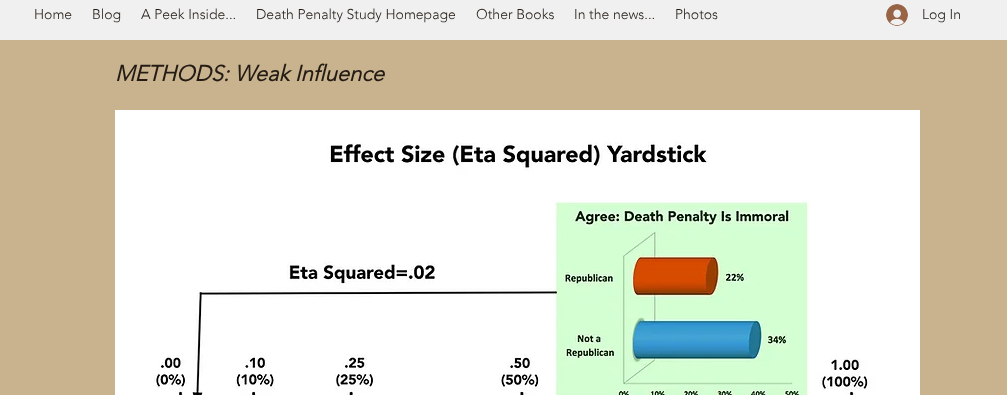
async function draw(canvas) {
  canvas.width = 1007
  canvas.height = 395
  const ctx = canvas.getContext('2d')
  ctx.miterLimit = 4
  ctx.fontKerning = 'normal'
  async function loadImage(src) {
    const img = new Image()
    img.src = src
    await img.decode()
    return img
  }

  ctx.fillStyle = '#c9b38f'
  ctx.fillRect(0, 0, 1007, 395)
  ctx.fillStyle = '#f0f0f0'
  ctx.fillRect(0, 0, 1007, 40)
  ctx.font = '300 14px "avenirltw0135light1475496"'
  ctx.fillStyle = '#241c14'
  ctx.fillText('Home', 34, 19)
  ctx.fillText('Blog', 92, 19)
  ctx.fillText('A Peek Inside...', 141, 19)
  ctx.fillText('Death Penalty Study Homepage', 256, 19)
  ctx.fillText('Other Books', 476, 19)
  ctx.fillText('In the news...', 574, 19)
  ctx.fillText('Photos', 675, 19)
  ctx.drawImage(await loadImage('image0.png'), 886, 4, 22, 22)
  ctx.fillText('Log In', 922, 19)
  ctx.font = 'italic bold 22px "avenirltw0135light1475496"'
  ctx.fillText('METHODS: Weak Influence', 115, 81)
  ctx.drawImage(await loadImage('image1.png'), 115, 110, 805, 285)
}

draw(document.querySelector('canvas'))
